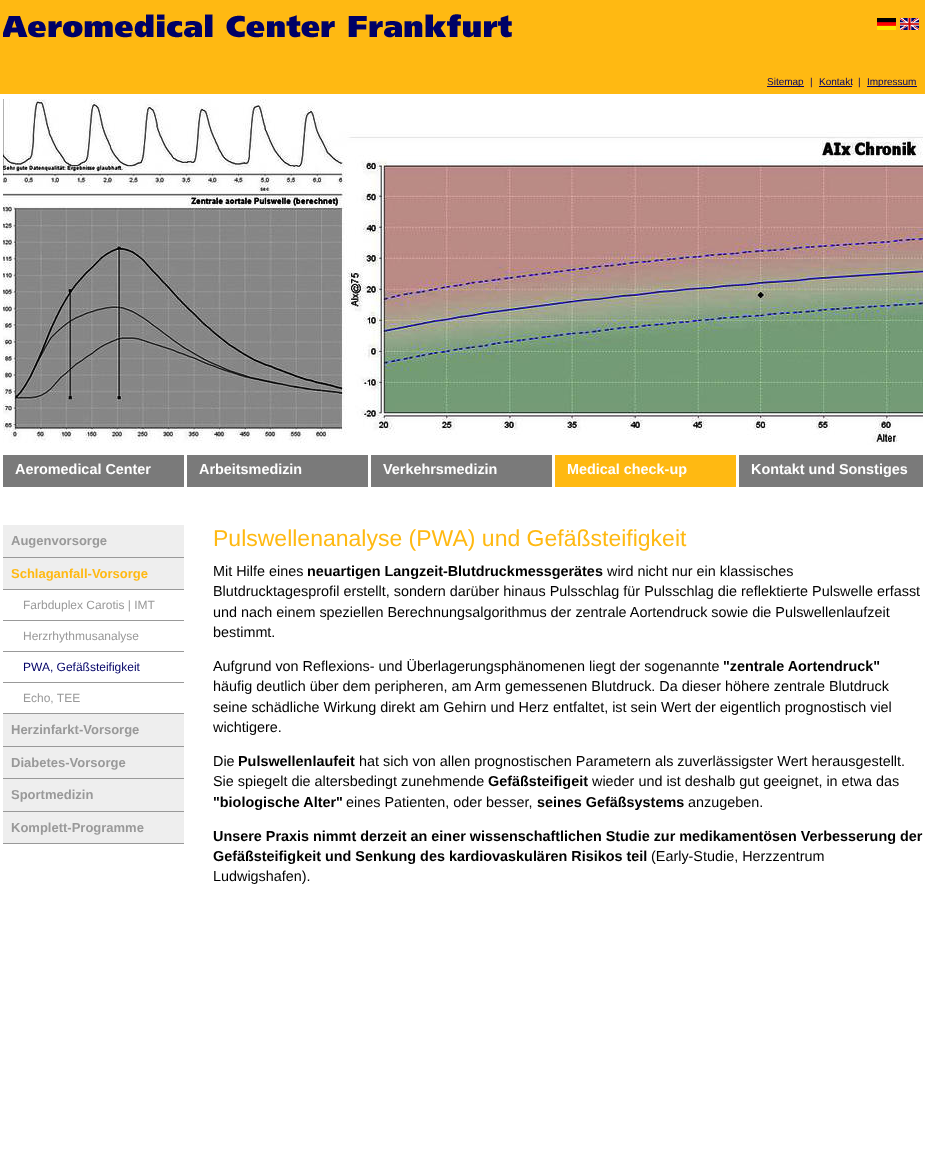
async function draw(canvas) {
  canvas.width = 925
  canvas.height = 1168
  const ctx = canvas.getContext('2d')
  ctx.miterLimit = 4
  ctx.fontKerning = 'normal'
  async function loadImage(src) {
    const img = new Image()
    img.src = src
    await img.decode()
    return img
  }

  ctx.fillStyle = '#fff'
  ctx.fillRect(0, 0, 925, 1168)
  ctx.fillStyle = '#ffb912'
  ctx.fillRect(0, 0, 925, 94)
  ctx.drawImage(await loadImage('image0.png'), 3, 14, 509, 24)
  ctx.drawImage(await loadImage('image1.png'), 877, 18, 19, 12)
  ctx.drawImage(await loadImage('image2.png'), 900, 18, 19, 12)
  ctx.fillStyle = '#000166'
  ctx.fillRect(767, 86, 37, 1)
  ctx.font = '10px Liberation Sans'
  ctx.fillText('Sitemap', 767, 85)
  ctx.fillText('|', 810, 85)
  ctx.fillText('Kontakt', 819, 85)
  ctx.fillRect(819, 86, 33, 1)
  ctx.fillText('|', 858, 85)
  ctx.fillRect(867, 86, 50, 1)
  ctx.fillText('Impressum', 867, 85)
  ctx.drawImage(await loadImage('image3.png'), 3, 99, 920, 346)
  ctx.fillStyle = '#7a7a7a'
  ctx.fillRect(3, 455, 181, 32)
  ctx.font = 'bold 14.4px Liberation Sans'
  ctx.fillStyle = '#fff'
  ctx.fillText('Aeromedical Center', 15, 474)
  ctx.fillStyle = '#7a7a7a'
  ctx.fillRect(187, 455, 181, 32)
  ctx.fillStyle = '#fff'
  ctx.fillText('Arbeitsmedizin', 199, 474)
  ctx.fillStyle = '#7a7a7a'
  ctx.fillRect(371, 455, 181, 32)
  ctx.fillStyle = '#fff'
  ctx.fillText('Verkehrsmedizin', 383, 474)
  ctx.fillStyle = '#ffb912'
  ctx.fillRect(555, 455, 181, 32)
  ctx.fillStyle = '#fff'
  ctx.fillText('Medical check-up', 567, 474)
  ctx.fillStyle = '#7a7a7a'
  ctx.fillRect(739, 455, 184, 32)
  ctx.fillStyle = '#fff'
  ctx.fillText('Kontakt und Sonstiges', 751, 474)
  ctx.fillStyle = '#eee'
  ctx.fillRect(3, 525, 181, 32)
  ctx.fillStyle = '#999'
  ctx.fillRect(3, 557, 181, 1)
  ctx.font = 'bold 13px Liberation Sans'
  ctx.fillText('Augenvorsorge', 11, 545)
  ctx.fillStyle = '#eee'
  ctx.fillRect(3, 558, 181, 31)
  ctx.fillStyle = '#999'
  ctx.fillRect(3, 589, 181, 1)
  ctx.fillStyle = '#ffb912'
  ctx.fillText('Schlaganfall-Vorsorge', 11, 578)
  ctx.fillStyle = '#999'
  ctx.fillRect(3, 620, 181, 1)
  ctx.font = '12px Liberation Sans'
  ctx.fillText('Farbduplex Carotis | IMT', 23, 609)
  ctx.fillRect(3, 651, 181, 1)
  ctx.fillText('Herzrhythmusanalyse', 23, 640)
  ctx.fillRect(3, 682, 181, 1)
  ctx.fillStyle = '#000166'
  ctx.fillText('PWA, Gefäßsteifigkeit', 23, 671)
  ctx.fillStyle = '#999'
  ctx.fillRect(3, 713, 181, 1)
  ctx.fillText('Echo, TEE', 23, 702)
  ctx.fillStyle = '#eee'
  ctx.fillRect(3, 714, 181, 32)
  ctx.fillStyle = '#999'
  ctx.fillRect(3, 746, 181, 1)
  ctx.font = 'bold 13px Liberation Sans'
  ctx.fillText('Herzinfarkt-Vorsorge', 11, 734)
  ctx.fillStyle = '#eee'
  ctx.fillRect(3, 747, 181, 31)
  ctx.fillStyle = '#999'
  ctx.fillRect(3, 778, 181, 1)
  ctx.fillText('Diabetes-Vorsorge', 11, 767)
  ctx.fillStyle = '#eee'
  ctx.fillRect(3, 779, 181, 32)
  ctx.fillStyle = '#999'
  ctx.fillRect(3, 811, 181, 1)
  ctx.fillText('Sportmedizin', 11, 799)
  ctx.fillStyle = '#eee'
  ctx.fillRect(3, 812, 181, 31)
  ctx.fillStyle = '#999'
  ctx.fillRect(3, 843, 181, 1)
  ctx.fillText('Komplett-Programme', 11, 832)
  ctx.font = '23px Liberation Sans'
  ctx.fillStyle = '#ffb912'
  ctx.fillText('Pulswellenanalyse (PWA) und Gefäßsteifigkeit', 213, 546)
  ctx.font = '14.4px Liberation Sans'
  ctx.fillStyle = '#000'
  ctx.fillText('Mit Hilfe eines', 213, 576)
  ctx.font = 'bold 14.4px Liberation Sans'
  ctx.fillText('neuartigen Langzeit-Blutdruckmessgerätes', 307, 576)
  ctx.font = '14.4px Liberation Sans'
  ctx.fillText('wird nicht nur ein klassisches', 607, 576)
  ctx.fillText('Blutdrucktagesprofil erstellt, sondern darüber hinaus Pulsschlag für Pulsschlag die reflektierte Pulswelle erfasst', 213, 596)
  ctx.fillText('und nach einem speziellen Berechnungsalgorithmus der zentrale Aortendruck sowie die Pulswellenlaufzeit', 213, 617)
  ctx.fillText('bestimmt.', 213, 637)
  ctx.fillText('Aufgrund von Reflexions- und Überlagerungsphänomenen liegt der sogenannte', 213, 671)
  ctx.font = 'bold 14.4px Liberation Sans'
  ctx.fillText('"zentrale Aortendruck"', 723, 671)
  ctx.font = '14.4px Liberation Sans'
  ctx.fillText('häufig deutlich über dem peripheren, am Arm gemessenen Blutdruck. Da dieser höhere zentrale Blutdruck', 213, 691)
  ctx.fillText('seine schädliche Wirkung direkt am Gehirn und Herz entfaltet, ist sein Wert der eigentlich prognostisch viel', 213, 712)
  ctx.fillText('wichtigere.', 213, 732)
  ctx.fillText('Die', 213, 766)
  ctx.font = 'bold 14.4px Liberation Sans'
  ctx.fillText('Pulswellenlaufeit', 238, 766)
  ctx.font = '14.4px Liberation Sans'
  ctx.fillText('hat sich von allen prognostischen Parametern als zuverlässigster Wert herausgestellt.', 359, 766)
  ctx.fillText('Sie spiegelt die altersbedingt zunehmende', 213, 786)
  ctx.font = 'bold 14.4px Liberation Sans'
  ctx.fillText('Gefäßsteifigeit', 488, 786)
  ctx.font = '14.4px Liberation Sans'
  ctx.fillText('wieder und ist deshalb gut geeignet, in etwa das', 592, 786)
  ctx.font = 'bold 14.4px Liberation Sans'
  ctx.fillText('"biologische Alter"', 213, 807)
  ctx.font = '14.4px Liberation Sans'
  ctx.fillText('eines Patienten, oder besser,', 346, 807)
  ctx.font = 'bold 14.4px Liberation Sans'
  ctx.fillText('seines Gefäßsystems', 537, 807)
  ctx.font = '14.4px Liberation Sans'
  ctx.fillText('anzugeben.', 688, 807)
  ctx.font = 'bold 14.4px Liberation Sans'
  ctx.fillText('Unsere Praxis nimmt derzeit an einer wissenschaftlichen Studie zur medikamentösen Verbesserung der', 213, 841)
  ctx.fillText('Gefäßsteifigkeit und Senkung des kardiovaskulären Risikos teil', 213, 861)
  ctx.font = '14.4px Liberation Sans'
  ctx.fillText('(Early-Studie, Herzzentrum', 651, 861)
  ctx.fillText('Ludwigshafen).', 213, 881)
}

draw(document.querySelector('canvas'))
